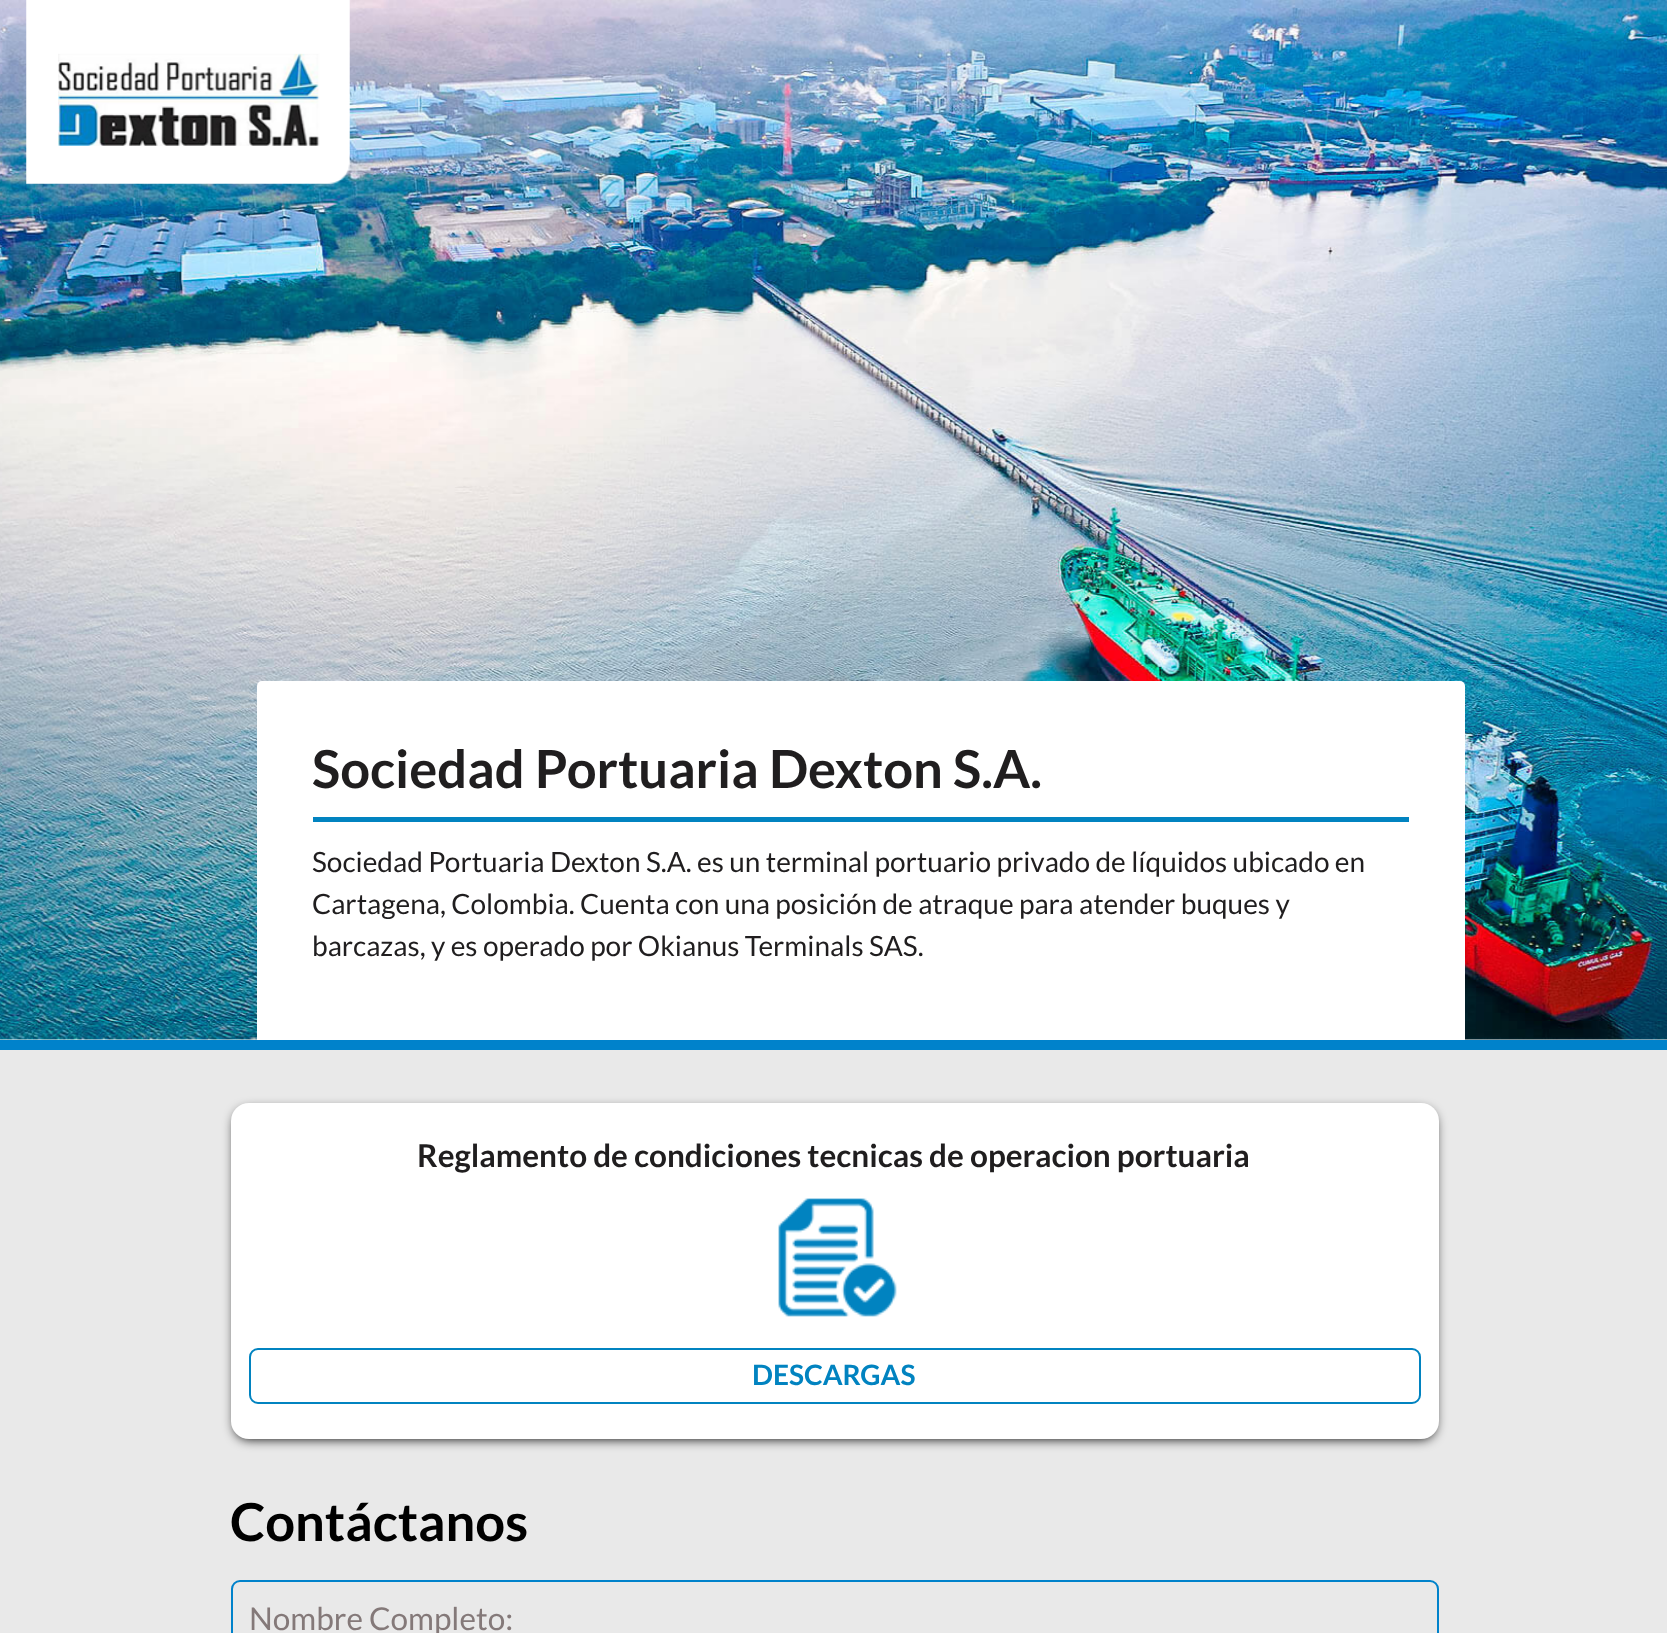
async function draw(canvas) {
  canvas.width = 1667
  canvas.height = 1633
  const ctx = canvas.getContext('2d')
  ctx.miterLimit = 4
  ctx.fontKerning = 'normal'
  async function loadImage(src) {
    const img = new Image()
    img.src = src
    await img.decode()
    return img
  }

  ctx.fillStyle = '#fff'
  ctx.fillRect(0, 0, 1667, 1633)
  ctx.drawImage(await loadImage('image1.png'), 0, 0, 1667, 1040)
  ctx.drawImage(await loadImage('image0.png'), 26, 0, 324, 184)
  ctx.fillStyle = '#0082cb'
  ctx.fillRect(0, 1040, 1667, 10)
  ctx.fillStyle = '#fff'
  ctx.beginPath()
  ctx.roundRect(257, 681, 1208, 359, [5, 5, 0, 0])
  ctx.fill()
  ctx.font = 'bold 52.5px Lato'
  ctx.fillStyle = '#201e1f'
  ctx.fillText('Sociedad Portuaria Dexton S.A.', 312, 788)
  ctx.fillStyle = '#0183c0'
  ctx.fillRect(313, 817, 1096, 5)
  ctx.font = '28px Lato'
  ctx.fillStyle = '#201e1f'
  ctx.fillText('Sociedad Portuaria Dexton S.A. es un terminal portuario privado de líquidos ubicado en', 312, 872)
  ctx.fillText('Cartagena, Colombia. Cuenta con una posición de atraque para atender buques y', 312, 914)
  ctx.fillText('barcazas, y es operado por Okianus Terminals SAS.', 312, 956)
  ctx.fillStyle = '#e9e9e9'
  ctx.fillRect(0, 1050, 1667, 583)
  ctx.fillStyle = '#000'
  ctx.filter = 'blur(6px)'
  ctx.beginPath()
  ctx.roundRect(235, 1110, 1200, 329, 14)
  ctx.fill()
  ctx.filter = 'none'
  ctx.fillStyle = '#fff'
  ctx.beginPath()
  ctx.roundRect(231, 1103, 1208, 336, 18)
  ctx.fill()
  ctx.font = 'bold 31.5px Lato'
  ctx.fillStyle = '#201e1f'
  ctx.fillText('Reglamento de condiciones tecnicas de operacion portuaria', 417, 1167)
  ctx.drawImage(await loadImage('image2.png'), 778, 1198, 119, 119)
  ctx.beginPath()
  ctx.roundRect(250, 1349, 1170, 54, 8)
  ctx.strokeStyle = '#0183c0'
  ctx.lineWidth = 2
  ctx.stroke()
  ctx.font = 'bold 28px Lato'
  ctx.fillStyle = '#0183c0'
  ctx.fillText('DESCARGAS', 752, 1385)
  ctx.font = 'bold 52.5px Lato'
  ctx.fillStyle = '#000'
  ctx.fillText('Contáctanos', 230, 1541)
  ctx.beginPath()
  ctx.roundRect(232, 1581, 1206, 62, 8)
  ctx.strokeStyle = '#0082cb'
  ctx.stroke()
  ctx.font = '31.5px Lato'
  ctx.fillStyle = '#847979'
  ctx.fillText('Nombre Completo:', 249, 1630)
}

draw(document.querySelector('canvas'))
